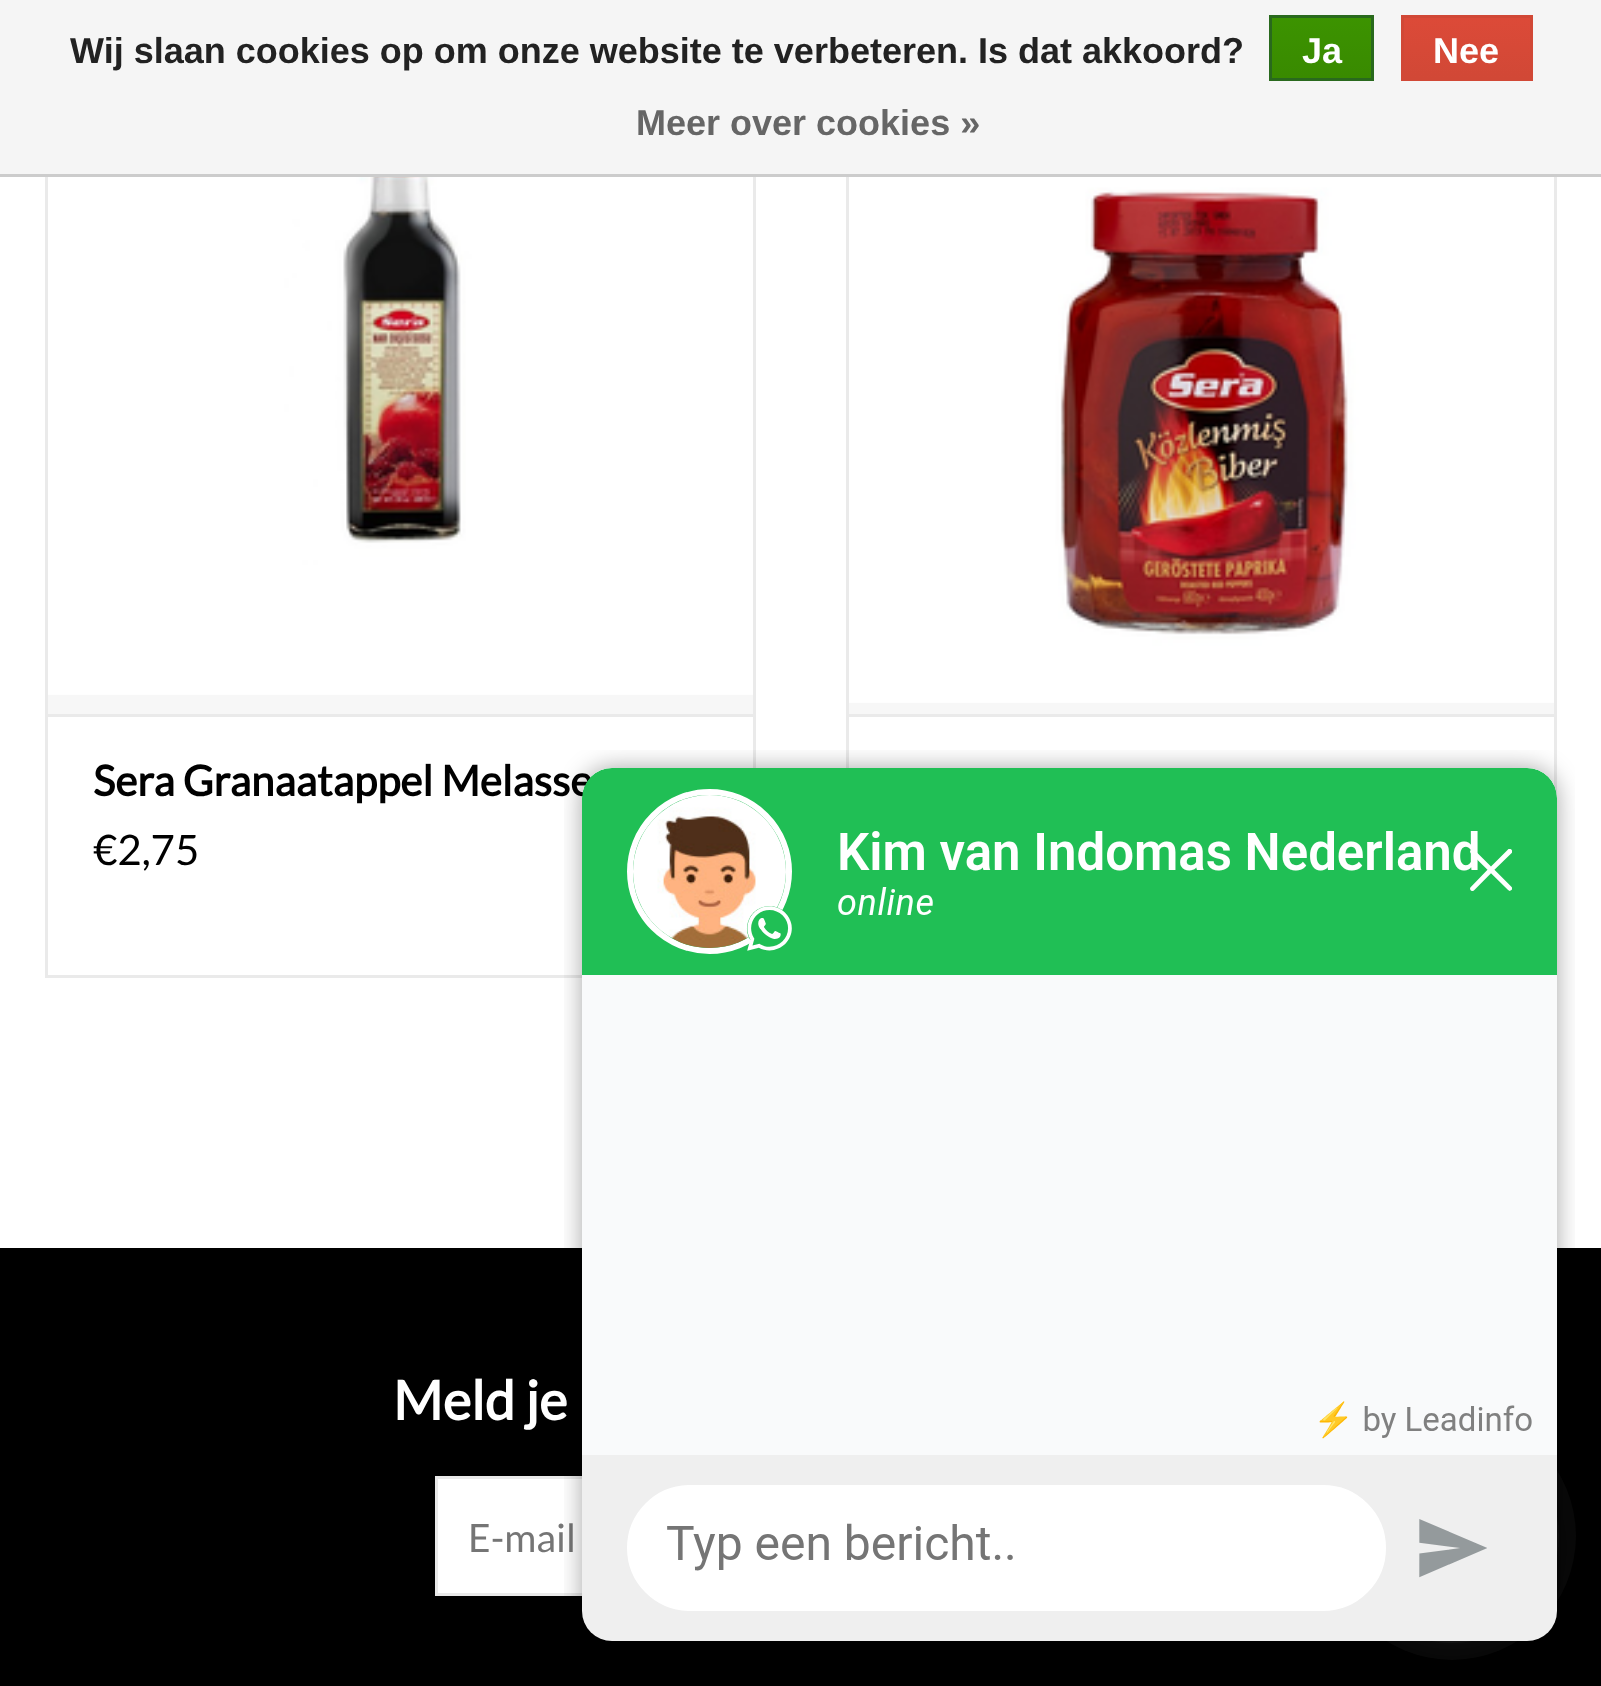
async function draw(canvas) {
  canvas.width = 1601
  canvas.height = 1686
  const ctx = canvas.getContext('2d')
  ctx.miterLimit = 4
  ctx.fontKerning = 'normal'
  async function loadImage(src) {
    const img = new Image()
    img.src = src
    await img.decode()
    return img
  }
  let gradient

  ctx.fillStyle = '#fff'
  ctx.fillRect(0, 0, 1601, 1686)
  ctx.fillStyle = '#f5f5f5'
  ctx.fillRect(0, 0, 1601, 174)
  ctx.fillStyle = '#ccc'
  ctx.fillRect(0, 174, 1601, 3)
  ctx.font = 'bold 36px Liberation Sans'
  ctx.fillStyle = '#222'
  ctx.fillText('Wij slaan cookies op om onze website te verbeteren. Is dat akkoord?', 70, 63)
  gradient = ctx.createLinearGradient(1322, 18, 1322, 78)
  gradient.addColorStop(0, '#3c9300')
  gradient.addColorStop(1, '#398a00')
  ctx.fillStyle = gradient
  ctx.fillRect(1272, 18, 99, 60)
  ctx.strokeStyle = '#29691d'
  ctx.lineWidth = 3
  ctx.strokeRect(1270.5, 16.5, 102, 63)
  ctx.fillStyle = '#fff'
  ctx.fillText('Ja', 1302, 63)
  gradient = ctx.createLinearGradient(1467, 18, 1467, 78)
  gradient.addColorStop(0, '#dc4a38')
  gradient.addColorStop(1, '#d14836')
  ctx.fillStyle = gradient
  ctx.fillRect(1404, 18, 126, 60)
  ctx.strokeStyle = '#d14836'
  ctx.strokeRect(1402.5, 16.5, 129, 63)
  ctx.fillStyle = '#fff'
  ctx.fillText('Nee', 1433, 63)
  ctx.fillStyle = '#666'
  ctx.fillText('Meer over cookies »', 636, 135)
  ctx.fillStyle = '#f7f7f7'
  ctx.fillRect(48, 694, 705, 20)
  ctx.fillStyle = '#eaeaea'
  ctx.fillRect(753, 177, 3, 537)
  ctx.fillRect(45, 177, 3, 537)
  ctx.drawImage(await loadImage('image0.png'), 48, 177, 705, 518)
  ctx.strokeStyle = '#eaeaea'
  ctx.strokeRect(46.5, 715.5, 708, 261)
  ctx.font = 'bold 42px Lato'
  ctx.fillStyle = '#000'
  ctx.fillText('Sera Granaatappel Melasse', 93, 796)
  ctx.font = '42px Lato'
  ctx.fillText('€2,75', 93, 865)
  ctx.fillStyle = '#f7f7f7'
  ctx.fillRect(849, 702, 705, 12)
  ctx.fillStyle = '#eaeaea'
  ctx.fillRect(1554, 177, 3, 537)
  ctx.fillRect(846, 177, 3, 537)
  ctx.drawImage(await loadImage('image1.png'), 849, 177, 705, 526)
  ctx.strokeRect(847.5, 715.5, 708, 261)
  ctx.fillStyle = '#000'
  ctx.fillRect(0, 1248, 1601, 438)
  ctx.font = 'bold 54px Lato'
  ctx.fillStyle = '#fff'
  ctx.fillText('Meld je', 393, 1420)
  ctx.fillRect(438, 1479, 144, 114)
  ctx.strokeStyle = '#e9e9e9'
  ctx.strokeRect(436.5, 1477.5, 477, 117)
  ctx.font = '39px Lato'
  ctx.fillStyle = '#757575'
  ctx.fillText('E-mail', 468, 1552)
  ctx.drawImage(await loadImage('image3.png'), 1387, 1471, 189, 189)
  ctx.drawImage(await loadImage('image2.png'), 564, 750, 1011, 891)
}

draw(document.querySelector('canvas'))
